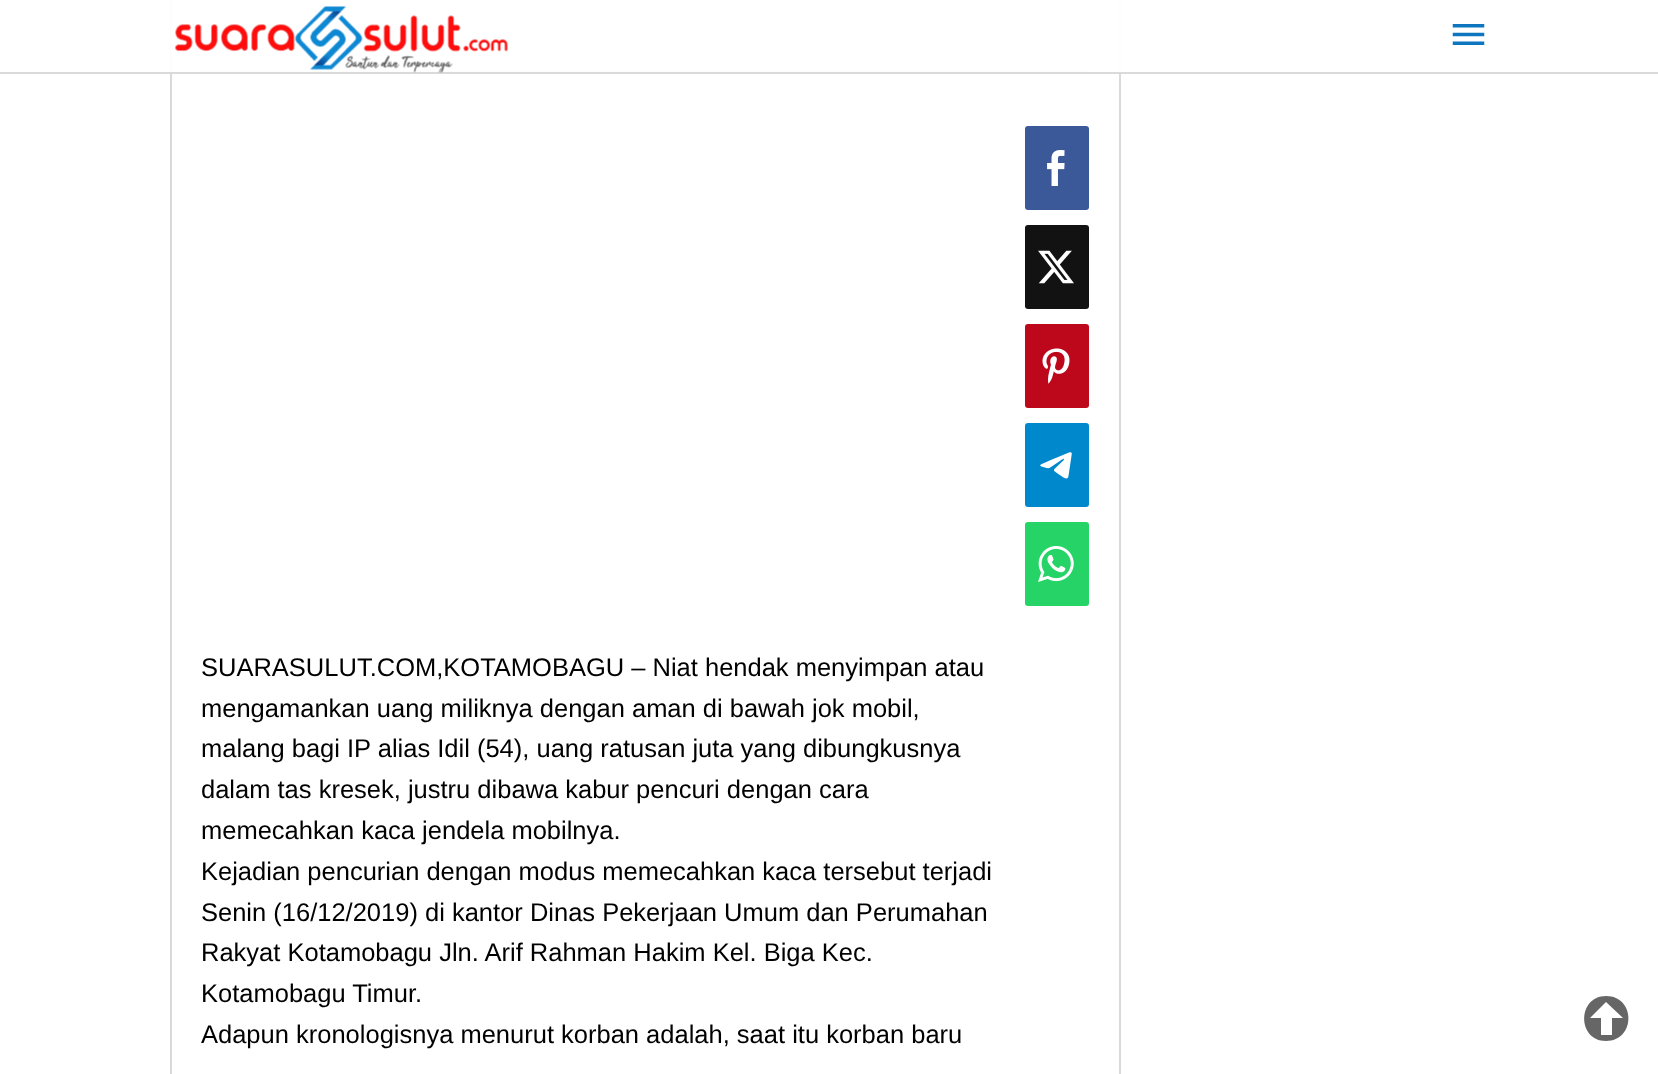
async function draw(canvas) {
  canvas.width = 1658
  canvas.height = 1074
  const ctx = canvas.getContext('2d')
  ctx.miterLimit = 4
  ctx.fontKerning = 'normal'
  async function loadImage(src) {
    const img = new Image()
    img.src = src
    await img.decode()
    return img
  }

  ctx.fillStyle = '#fff'
  ctx.fillRect(0, 0, 1658, 1074)
  ctx.strokeStyle = '#d9d9d9'
  ctx.lineWidth = 2
  ctx.strokeRect(171, -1, 949, 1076)
  ctx.fillStyle = '#d9d9d9'
  ctx.fillRect(201, 71, 888, 1)
  ctx.fillStyle = '#fffffff2'
  ctx.fillRect(170, 0, 951, 72)
  ctx.fillStyle = '#dadada'
  ctx.fillRect(0, 72, 1658, 2)
  ctx.drawImage(await loadImage('image0.png'), 174, 6, 334, 67)
  ctx.drawImage(await loadImage('image1.png'), 1452, 24, 33, 21)
  ctx.fillStyle = '#3b5998'
  ctx.beginPath()
  ctx.roundRect(1025, 126, 64, 84, 3)
  ctx.fill()
  ctx.drawImage(await loadImage('image2.png'), 1047, 150, 18, 36)
  ctx.fillStyle = '#121212'
  ctx.beginPath()
  ctx.roundRect(1025, 225, 64, 84, 3)
  ctx.fill()
  ctx.drawImage(await loadImage('image3.png'), 1038, 250, 36, 34)
  ctx.fillStyle = '#bd081c'
  ctx.beginPath()
  ctx.roundRect(1025, 324, 64, 84, 3)
  ctx.fill()
  ctx.drawImage(await loadImage('image4.png'), 1042, 348, 28, 36)
  ctx.fillStyle = '#08c'
  ctx.beginPath()
  ctx.roundRect(1025, 423, 64, 84, 3)
  ctx.fill()
  ctx.drawImage(await loadImage('image5.png'), 1040, 452, 32, 27)
  ctx.fillStyle = '#25d366'
  ctx.beginPath()
  ctx.roundRect(1025, 522, 64, 84, 3)
  ctx.fill()
  ctx.drawImage(await loadImage('image6.png'), 1038, 546, 36, 36)
  ctx.font = '25.5px Liberation Sans'
  ctx.fillStyle = '#000'
  ctx.fillText('SUARASULUT.COM,KOTAMOBAGU – Niat hendak menyimpan atau', 201, 676)
  ctx.fillText('mengamankan uang miliknya dengan aman di bawah jok mobil,', 201, 717)
  ctx.fillText('malang bagi IP alias Idil (54), uang ratusan juta yang dibungkusnya', 201, 757)
  ctx.fillText('dalam tas kresek, justru dibawa kabur pencuri dengan cara', 201, 798)
  ctx.fillText('memecahkan kaca jendela mobilnya.', 201, 839)
  ctx.fillText('Kejadian pencurian dengan modus memecahkan kaca tersebut terjadi', 201, 880)
  ctx.fillText('Senin (16/12/2019) di kantor Dinas Pekerjaan Umum dan Perumahan', 201, 921)
  ctx.fillText('Rakyat Kotamobagu Jln. Arif Rahman Hakim Kel. Biga Kec.', 201, 961)
  ctx.fillText('Kotamobagu Timur.', 201, 1002)
  ctx.fillText('Adapun kronologisnya menurut korban adalah, saat itu korban baru', 201, 1043)
  ctx.fillStyle = '#666'
  ctx.beginPath()
  ctx.moveTo(1606, 996)
  ctx.bezierCurveTo(1577, 996, 1577, 1041, 1606, 1041)
  ctx.bezierCurveTo(1636, 1041, 1636, 996, 1606, 996)
  ctx.closePath()
  ctx.moveTo(1606, 1002)
  ctx.lineTo(1623, 1018)
  ctx.lineTo(1612, 1018)
  ctx.lineTo(1612, 1035)
  ctx.lineTo(1601, 1035)
  ctx.lineTo(1601, 1018)
  ctx.lineTo(1590, 1018)
  ctx.closePath()
  ctx.fill()
}

draw(document.querySelector('canvas'))
